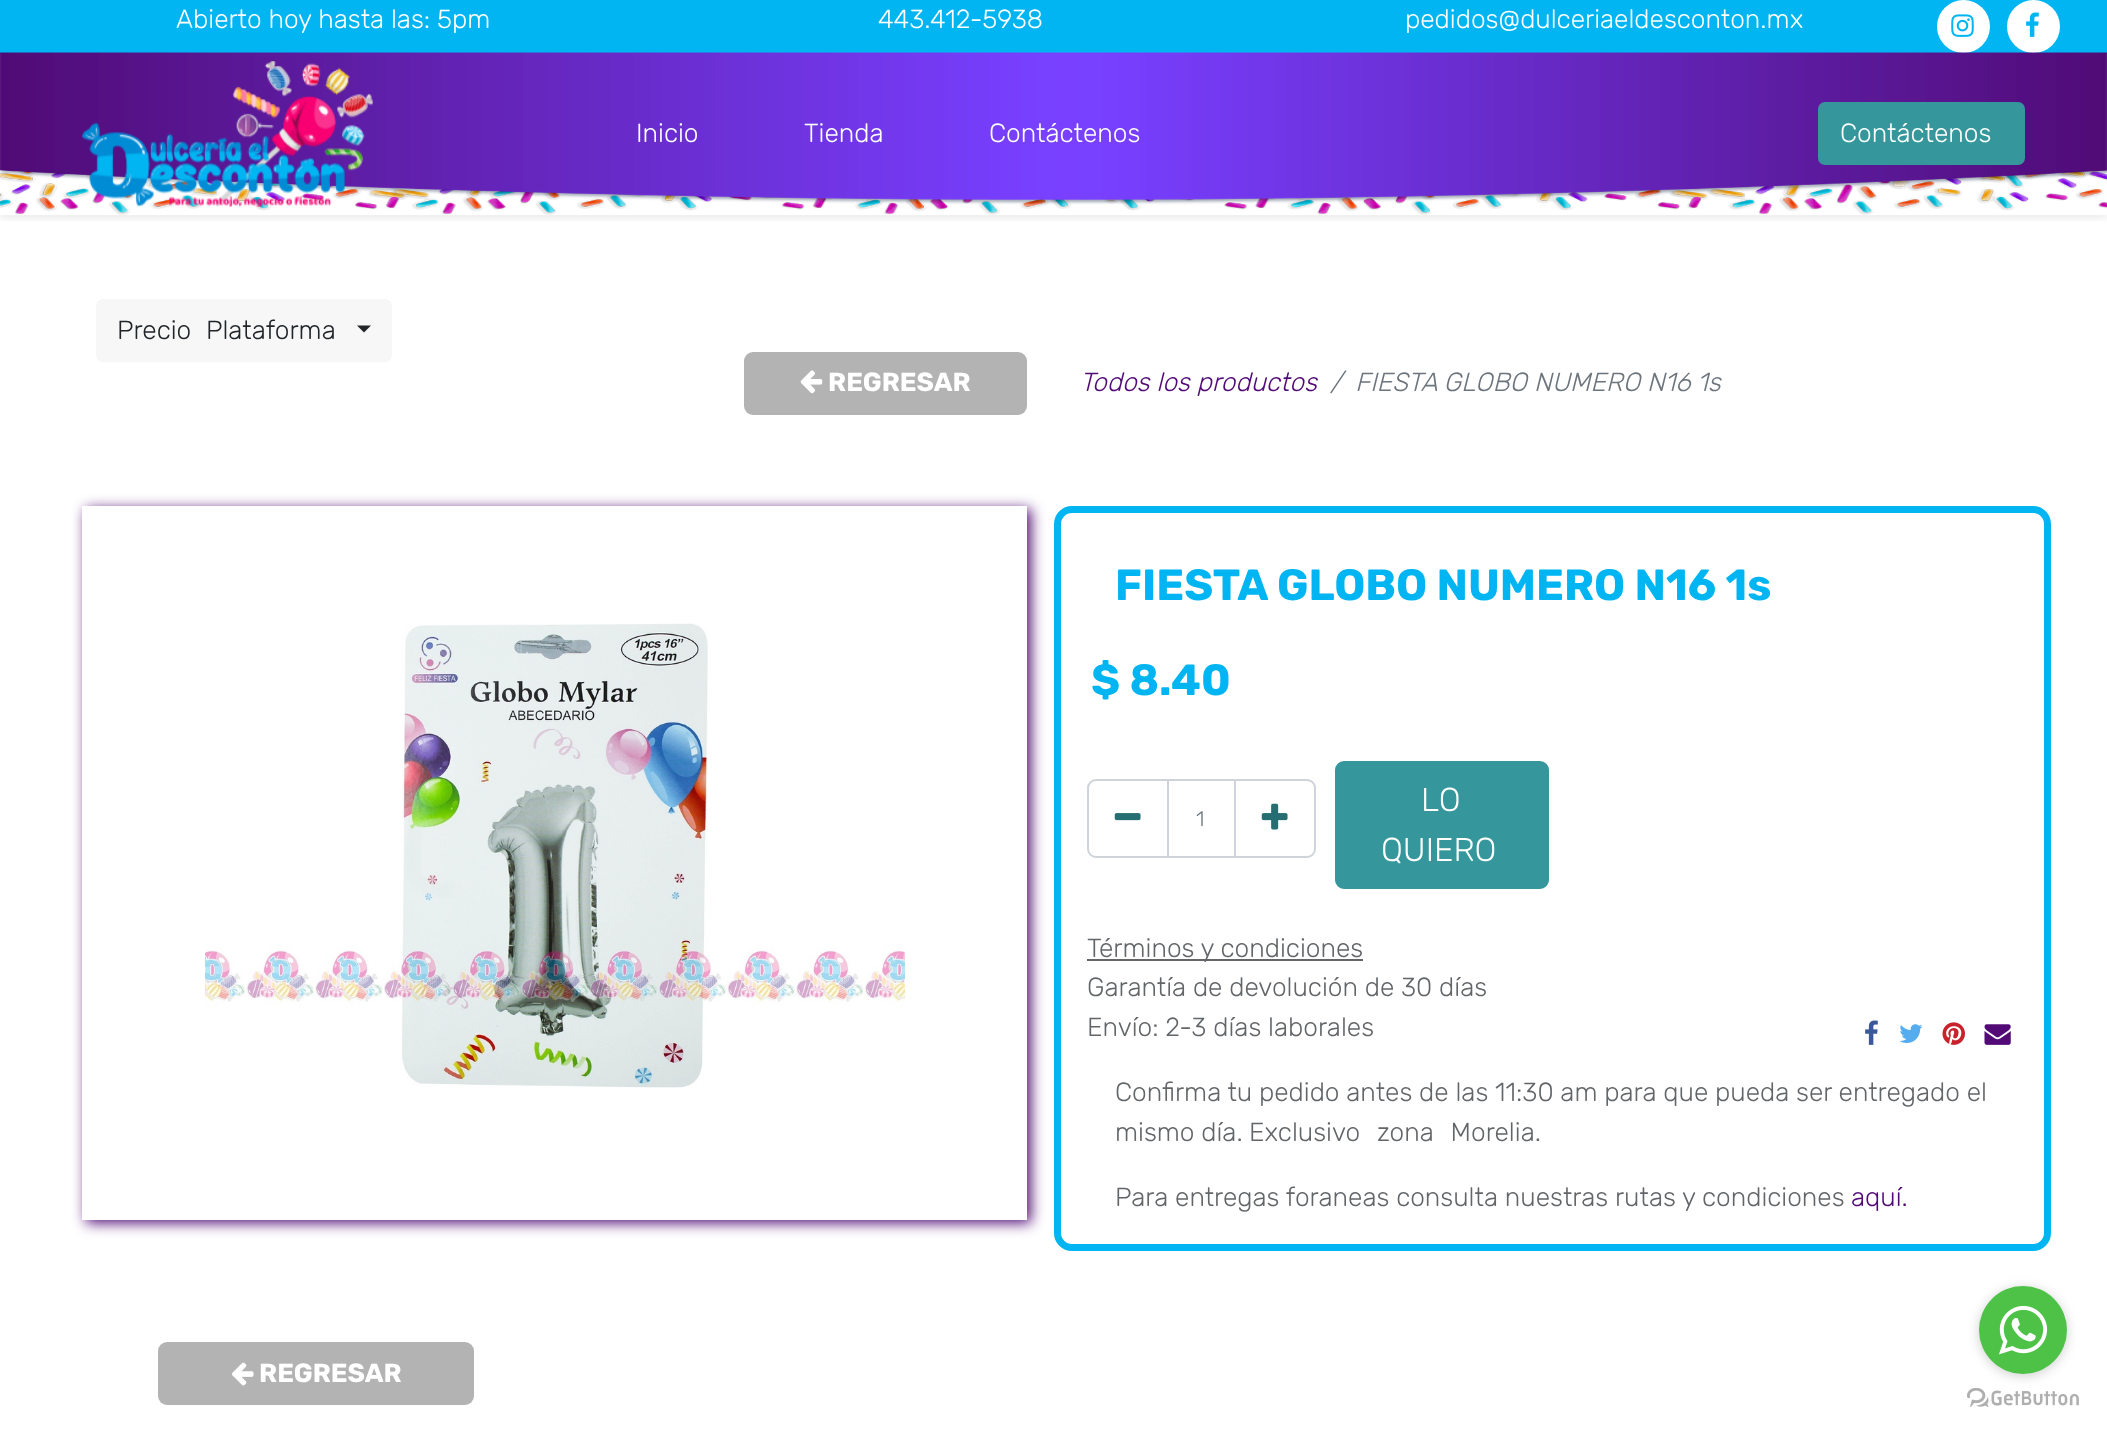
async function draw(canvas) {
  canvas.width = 2107
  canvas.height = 1430
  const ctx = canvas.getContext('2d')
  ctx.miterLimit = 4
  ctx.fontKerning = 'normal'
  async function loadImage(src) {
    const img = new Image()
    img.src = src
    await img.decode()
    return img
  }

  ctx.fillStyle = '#fff'
  ctx.fillRect(0, 0, 2107, 1430)
  ctx.fillStyle = '#00b5f1'
  ctx.fillRect(0, 0, 2107, 53)
  ctx.font = '300 26.25px Rubik'
  ctx.fillStyle = '#fff'
  ctx.fillText('Abierto hoy hasta las: 5pm', 176, 28)
  ctx.fillText('443.412-5938', 878, 28)
  ctx.fillText('pedidos@dulceriaeldesconton.mx', 1405, 28)
  ctx.beginPath()
  ctx.arc(1963.5, 26.5, 26.5, 0, 2 * Math.PI)
  ctx.fill()
  ctx.drawImage(await loadImage('image0.png'), 1951, 14, 23, 23)
  ctx.beginPath()
  ctx.arc(2033.5, 26.5, 26.5, 0, 2 * Math.PI)
  ctx.fill()
  ctx.drawImage(await loadImage('image1.png'), 2026, 12, 13, 25)
  ctx.save()
  ctx.beginPath()
  ctx.rect(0, 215, 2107, 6)
  ctx.clip()
  ctx.fillStyle = '#00000012'
  ctx.filter = 'blur(3.5px)'
  ctx.beginPath()
  ctx.rect(0, 56, 2107, 163)
  ctx.fill()
  ctx.filter = 'none'
  ctx.restore()
  ctx.drawImage(await loadImage('image2.png'), 0, 52, 2107, 163)
  ctx.drawImage(await loadImage('image3.png'), 82, 61, 291, 146)
  ctx.fillText('Inicio', 636, 142)
  ctx.fillText('Tienda', 804, 142)
  ctx.fillText('Contáctenos', 989, 142)
  ctx.fillStyle = '#35979c'
  ctx.beginPath()
  ctx.roundRect(1819, 103, 205, 61, 6)
  ctx.fill()
  ctx.strokeStyle = '#35979c'
  ctx.lineWidth = 2
  ctx.stroke()
  ctx.fillStyle = '#fff'
  ctx.fillText('Contáctenos', 1840, 142)
  ctx.fillStyle = '#f7f7f7'
  ctx.beginPath()
  ctx.roundRect(96, 299, 296, 63, 7)
  ctx.fill()
  ctx.wordSpacing = '8px'
  ctx.fillStyle = '#212529'
  ctx.fillText('Precio Plataforma', 117, 339)
  ctx.beginPath()
  ctx.moveTo(357, 325.5)
  ctx.lineTo(371, 325.5)
  ctx.lineTo(364, 332.5)
  ctx.closePath()
  ctx.fill()
  ctx.fillStyle = '#b3b3b3'
  ctx.beginPath()
  ctx.roundRect(744, 352, 283, 63, 9)
  ctx.fill()
  ctx.drawImage(await loadImage('image4.png'), 800, 370, 23, 24)
  ctx.wordSpacing = '0px'
  ctx.font = 'bold 26.25px Rubik'
  ctx.fillStyle = '#fff'
  ctx.fillText('REGRESAR', 828, 391)
  ctx.font = 'italic 300 26.25px Rubik'
  ctx.fillStyle = '#510a76'
  ctx.fillText('Todos los productos', 1080, 391)
  ctx.fillStyle = '#6c757d'
  ctx.fillText('/', 1330, 391)
  ctx.fillText('FIESTA GLOBO NUMERO N16 1s', 1355, 391)
  ctx.save()
  ctx.beginPath()
  ctx.moveTo(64, 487)
  ctx.lineTo(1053, 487)
  ctx.lineTo(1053, 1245)
  ctx.lineTo(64, 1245)
  ctx.closePath()
  ctx.moveTo(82, 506)
  ctx.lineTo(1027, 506)
  ctx.lineTo(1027, 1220)
  ctx.lineTo(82, 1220)
  ctx.closePath()
  ctx.clip('evenodd')
  ctx.fillStyle = '#510a76'
  ctx.filter = 'blur(7px)'
  ctx.beginPath()
  ctx.rect(86, 509, 945, 714)
  ctx.fill()
  ctx.filter = 'none'
  ctx.restore()
  ctx.drawImage(await loadImage('image5.png'), 205, 623, 700, 465)
  ctx.beginPath()
  ctx.roundRect(1057.5, 509.5, 990, 738, 14.5)
  ctx.strokeStyle = '#00b5f1'
  ctx.lineWidth = 7
  ctx.stroke()
  ctx.font = 'bold 43.75px Rubik'
  ctx.fillStyle = '#00b5f1'
  ctx.fillText('FIESTA GLOBO NUMERO N16 1s', 1115, 600)
  ctx.fillText('$ 8.40', 1091, 695)
  ctx.strokeStyle = '#ced4da'
  ctx.lineWidth = 2
  ctx.strokeRect(1168, 780, 67, 77)
  ctx.beginPath()
  ctx.roundRect(1088, 780, 80, 77, [8, 0, 0, 8])
  ctx.stroke()
  ctx.drawImage(await loadImage('image6.png'), 1114, 813, 27, 8)
  ctx.font = '300 21px Rubik'
  ctx.fillStyle = '#6c757d'
  ctx.fillText('1', 1196, 826)
  ctx.beginPath()
  ctx.roundRect(1235, 780, 80, 77, [0, 8, 8, 0])
  ctx.stroke()
  ctx.drawImage(await loadImage('image7.png'), 1261, 803, 27, 27)
  ctx.fillStyle = '#35979c'
  ctx.beginPath()
  ctx.roundRect(1336, 762, 212, 126, 8)
  ctx.fill()
  ctx.strokeStyle = '#35979c'
  ctx.stroke()
  ctx.font = '300 33px Rubik'
  ctx.fillStyle = '#fff'
  ctx.fillText('LO', 1421, 811)
  ctx.fillText('QUIERO', 1381, 861)
  ctx.fillStyle = '#646669'
  ctx.fillRect(1087, 959, 276, 2)
  ctx.font = '300 26.25px Rubik'
  ctx.fillStyle = '#636669'
  ctx.fillText('Términos y condiciones', 1087, 957)
  ctx.fillText('Garantía de devolución de 30 días', 1087, 996)
  ctx.fillText('Envío: 2-3 días laborales', 1087, 1036)
  ctx.drawImage(await loadImage('image8.png'), 1865, 1020, 13, 25)
  ctx.drawImage(await loadImage('image9.png'), 1899, 1024, 24, 19)
  ctx.drawImage(await loadImage('image10.png'), 1942, 1022, 23, 23)
  ctx.drawImage(await loadImage('image11.png'), 1984, 1024, 27, 21)
  ctx.fillText('Confirma tu pedido antes de las 11:30 am para que pueda ser entregado el', 1115, 1101)
  ctx.fillText('mismo día.', 1115, 1141)
  ctx.wordSpacing = '10px'
  ctx.fillText('Exclusivo zona Morelia.', 1249, 1141)
  ctx.wordSpacing = '0px'
  ctx.fillText('Para entregas foraneas consulta nuestras rutas y condiciones', 1115, 1206)
  ctx.fillStyle = '#510a76'
  ctx.fillText('aquí.', 1851, 1206)
  ctx.fillStyle = '#b3b3b3'
  ctx.beginPath()
  ctx.roundRect(158, 1342, 316, 63, 9)
  ctx.fill()
  ctx.drawImage(await loadImage('image12.png'), 232, 1362, 22, 24)
  ctx.font = 'bold 26.25px Rubik'
  ctx.fillStyle = '#fff'
  ctx.fillText('REGRESAR', 259, 1382)
  ctx.drawImage(await loadImage('image14.png'), 1967, 1388, 112, 19)
  ctx.fillStyle = '#88888866'
  ctx.filter = 'blur(6px)'
  ctx.beginPath()
  ctx.roundRect(1979, 1288, 88, 88, 44)
  ctx.fill()
  ctx.filter = 'none'
  ctx.fillStyle = '#4dc247'
  ctx.beginPath()
  ctx.arc(2023, 1330, 44, 0, 2 * Math.PI)
  ctx.fill()
  ctx.drawImage(await loadImage('image13.png'), 1999, 1305, 49, 50)
}

draw(document.querySelector('canvas'))
